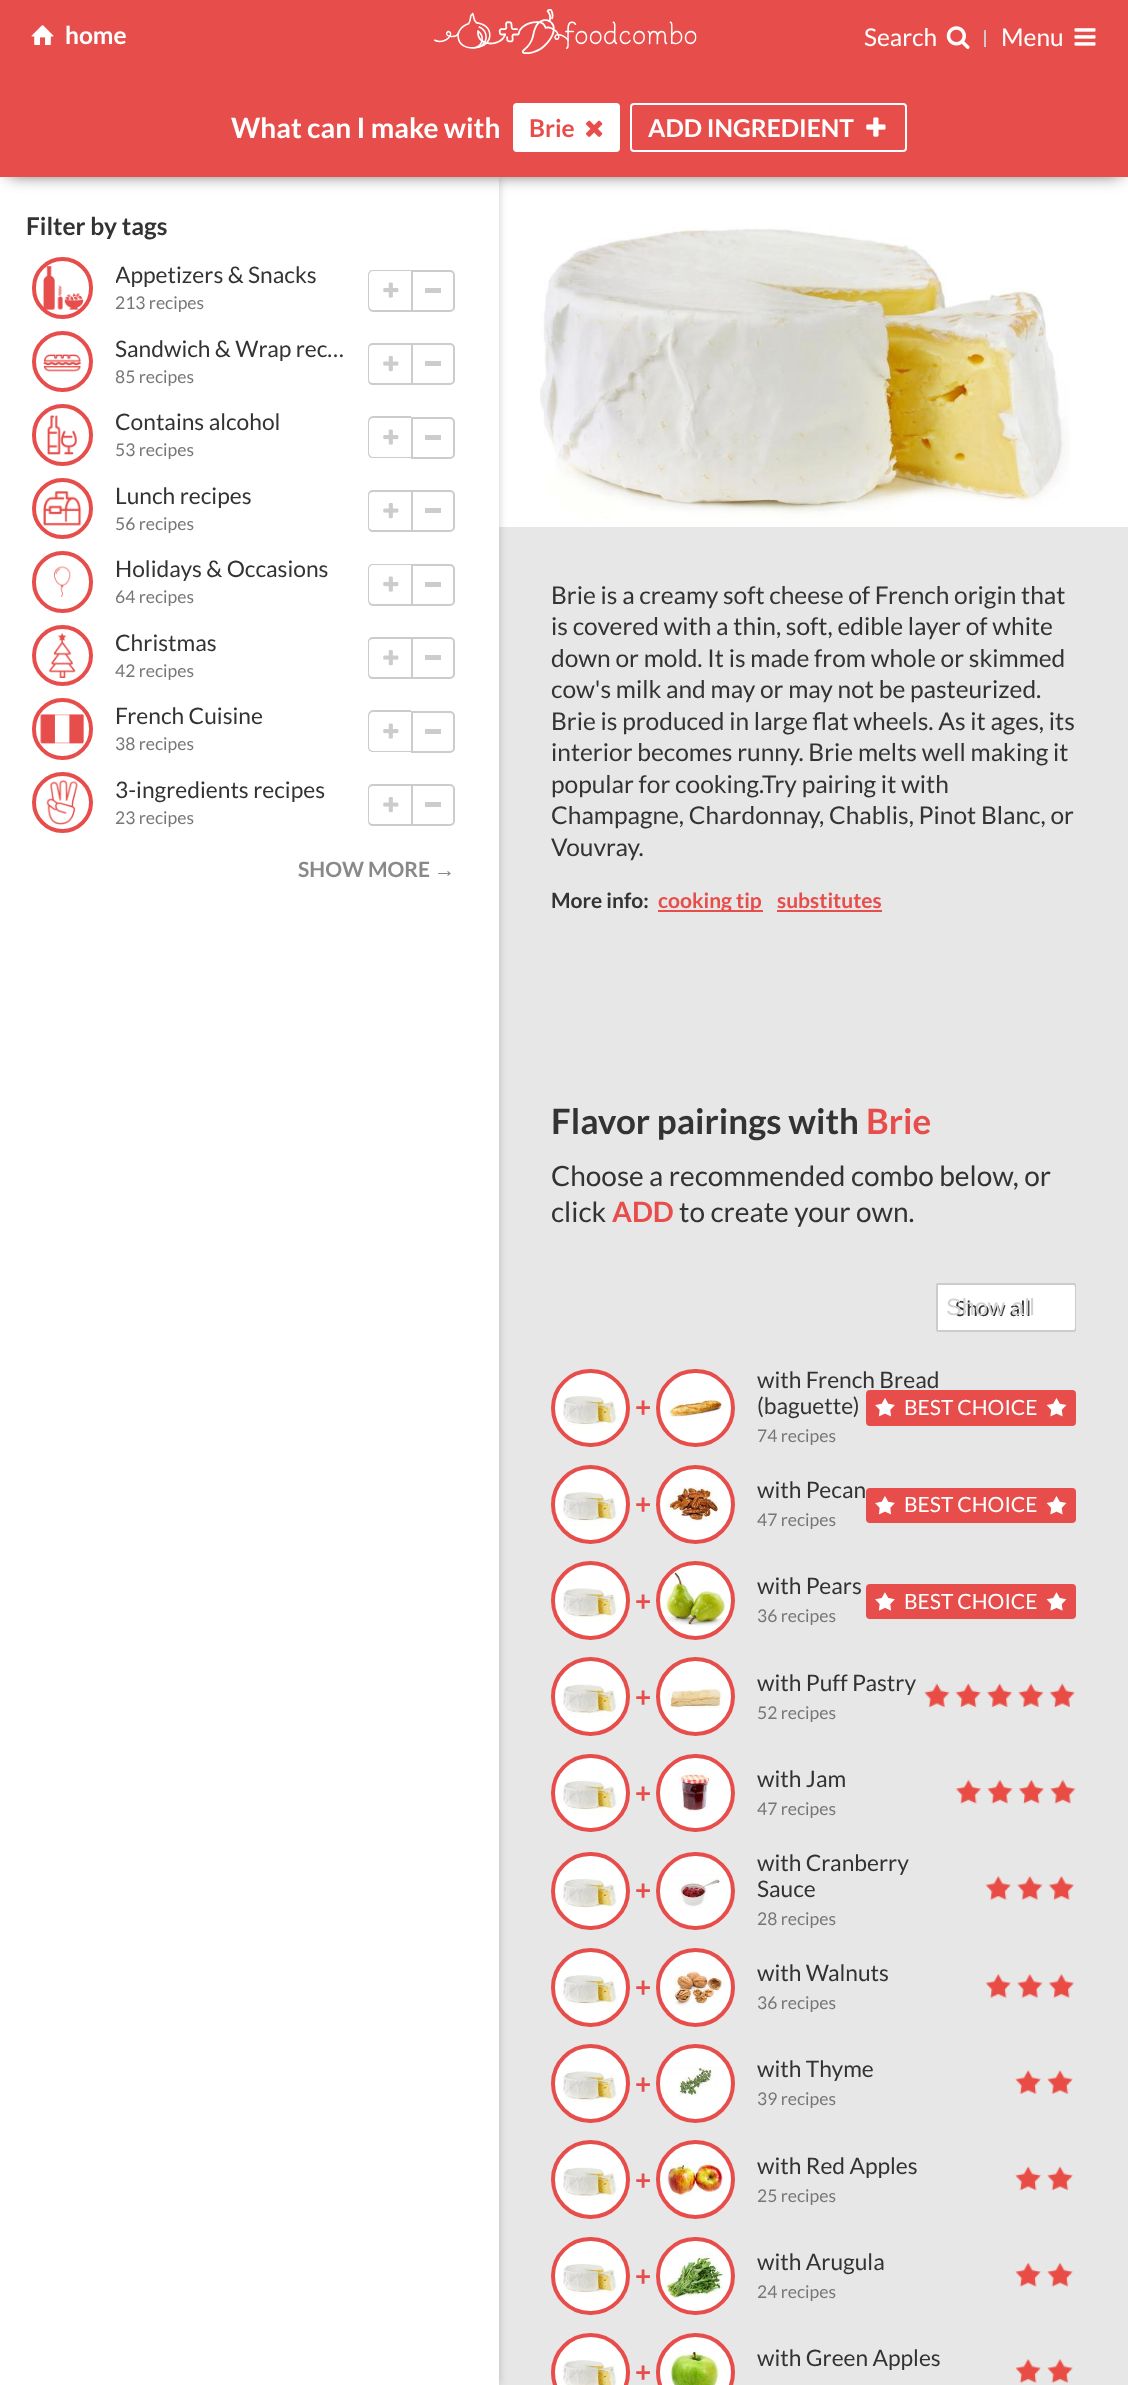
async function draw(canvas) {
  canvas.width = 1128
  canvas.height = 2385
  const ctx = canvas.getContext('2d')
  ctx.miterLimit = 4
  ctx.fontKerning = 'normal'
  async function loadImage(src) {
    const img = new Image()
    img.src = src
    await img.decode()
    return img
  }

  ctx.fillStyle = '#e7e7e7'
  ctx.fillRect(0, 0, 1128, 2385)
  ctx.fillStyle = '#fff'
  ctx.fillRect(499, 177, 629, 350)
  ctx.fillStyle = '#00000033'
  ctx.filter = 'blur(4.5px)'
  ctx.beginPath()
  ctx.rect(0, 177, 499, 2208)
  ctx.fill()
  ctx.filter = 'none'
  ctx.fillStyle = '#fff'
  ctx.fillRect(0, 177, 499, 2208)
  ctx.fillStyle = '#333'
  ctx.filter = 'blur(9px)'
  ctx.beginPath()
  ctx.rect(9, 93, 1111, 80)
  ctx.fill()
  ctx.filter = 'none'
  ctx.fillStyle = '#e74d4a'
  ctx.fillRect(0, 0, 1128, 177)
  ctx.drawImage(await loadImage('image0.png'), 31, 25, 23, 20)
  ctx.font = 'bold 24.5px Lato'
  ctx.fillStyle = '#fff'
  ctx.fillText('home', 65, 44)
  ctx.drawImage(await loadImage('image1.png'), 434, 9, 263, 45)
  ctx.font = '24.5px Lato'
  ctx.fillText('Search', 864, 46)
  ctx.drawImage(await loadImage('image2.png'), 946, 26, 24, 23)
  ctx.fillStyle = '#ccc'
  ctx.fillRect(984, 30, 2, 17)
  ctx.fillStyle = '#fff'
  ctx.fillText('Menu', 1001, 46)
  ctx.drawImage(await loadImage('image3.png'), 1074, 28, 22, 18)
  ctx.font = 'bold 28px Lato'
  ctx.fillText('What can I make with', 231, 138)
  ctx.beginPath()
  ctx.roundRect(514, 104, 105, 47, 3)
  ctx.fill()
  ctx.strokeStyle = '#fff'
  ctx.lineWidth = 2
  ctx.stroke()
  ctx.font = 'bold 24.5px Lato'
  ctx.fillStyle = '#e74d4a'
  ctx.fillText('Brie', 529, 137)
  ctx.drawImage(await loadImage('image4.png'), 586, 120, 17, 17)
  ctx.beginPath()
  ctx.roundRect(631, 104, 275, 47, 3)
  ctx.stroke()
  ctx.fillStyle = '#fff'
  ctx.fillText('ADD INGREDIENT', 648, 137)
  ctx.drawImage(await loadImage('image5.png'), 866, 117, 20, 20)
  ctx.fillStyle = '#333'
  ctx.fillText('Filter by tags', 26, 235)
  ctx.drawImage(await loadImage('image6.png'), 43, 266, 41, 44)
  ctx.beginPath()
  ctx.roundRect(34, 259, 57, 58, 28.5)
  ctx.strokeStyle = '#e74d4a'
  ctx.lineWidth = 4
  ctx.stroke()
  ctx.save()
  ctx.beginPath()
  ctx.rect(116, 263, 234, 26)
  ctx.clip()
  ctx.font = '22.75px Lato'
  ctx.fillText('Appetizers & Snacks', 115, 283)
  ctx.restore()
  ctx.fillStyle = '#ccc'
  ctx.beginPath()
  ctx.moveTo(373, 270)
  ctx.lineTo(411, 270)
  ctx.lineTo(411, 312)
  ctx.lineTo(373, 312)
  ctx.bezierCurveTo(370, 312, 368, 309, 368, 306)
  ctx.lineTo(368, 275)
  ctx.bezierCurveTo(368, 272, 370, 270, 373, 270)
  ctx.closePath()
  ctx.moveTo(373, 271)
  ctx.lineTo(411, 271)
  ctx.lineTo(411, 310)
  ctx.lineTo(373, 310)
  ctx.bezierCurveTo(371, 310, 369, 308, 369, 306)
  ctx.lineTo(369, 275)
  ctx.bezierCurveTo(369, 273, 371, 271, 373, 271)
  ctx.closePath()
  ctx.fill('evenodd')
  ctx.drawImage(await loadImage('image7.png'), 383, 282, 16, 16)
  ctx.beginPath()
  ctx.roundRect(412, 271, 42, 40, [0, 4, 4, 0])
  ctx.strokeStyle = '#ccc'
  ctx.lineWidth = 2
  ctx.stroke()
  ctx.fillRect(425, 288, 16, 5)
  ctx.font = '17.5px Lato'
  ctx.fillStyle = '#777'
  ctx.fillText('213 recipes', 115, 309)
  ctx.drawImage(await loadImage('image8.png'), 43, 354, 39, 18)
  ctx.beginPath()
  ctx.arc(62.5, 361.5, 28.5, 0, 2 * Math.PI)
  ctx.strokeStyle = '#e74d4a'
  ctx.lineWidth = 4
  ctx.stroke()
  ctx.font = '22.75px Lato'
  ctx.fillStyle = '#333'
  ctx.fillText('Sandwich & Wrap rec…', 115, 357)
  ctx.fillStyle = '#ccc'
  ctx.beginPath()
  ctx.moveTo(373, 343)
  ctx.lineTo(411, 343)
  ctx.lineTo(411, 385)
  ctx.lineTo(373, 385)
  ctx.bezierCurveTo(370, 385, 368, 383, 368, 380)
  ctx.lineTo(368, 348)
  ctx.bezierCurveTo(368, 345, 370, 343, 373, 343)
  ctx.closePath()
  ctx.moveTo(373, 345)
  ctx.lineTo(411, 345)
  ctx.lineTo(411, 383)
  ctx.lineTo(373, 383)
  ctx.bezierCurveTo(371, 383, 369, 382, 369, 380)
  ctx.lineTo(369, 348)
  ctx.bezierCurveTo(369, 346, 371, 345, 373, 345)
  ctx.closePath()
  ctx.fill('evenodd')
  ctx.drawImage(await loadImage('image9.png'), 383, 356, 16, 16)
  ctx.beginPath()
  ctx.roundRect(412, 344, 42, 40, [0, 4, 4, 0])
  ctx.strokeStyle = '#ccc'
  ctx.lineWidth = 2
  ctx.stroke()
  ctx.fillRect(425, 361, 16, 5)
  ctx.font = '17.5px Lato'
  ctx.fillStyle = '#777'
  ctx.fillText('85 recipes', 115, 383)
  ctx.drawImage(await loadImage('image10.png'), 47, 415, 31, 40)
  ctx.beginPath()
  ctx.roundRect(34, 406, 57, 58, 28.5)
  ctx.strokeStyle = '#e74d4a'
  ctx.lineWidth = 4
  ctx.stroke()
  ctx.save()
  ctx.beginPath()
  ctx.rect(116, 410, 234, 26)
  ctx.clip()
  ctx.font = '22.75px Lato'
  ctx.fillStyle = '#333'
  ctx.fillText('Contains alcohol', 115, 430)
  ctx.restore()
  ctx.fillStyle = '#ccc'
  ctx.beginPath()
  ctx.moveTo(373, 416)
  ctx.lineTo(411, 416)
  ctx.lineTo(411, 458)
  ctx.lineTo(373, 458)
  ctx.bezierCurveTo(370, 458, 368, 456, 368, 453)
  ctx.lineTo(368, 422)
  ctx.bezierCurveTo(368, 419, 370, 416, 373, 416)
  ctx.closePath()
  ctx.moveTo(373, 418)
  ctx.lineTo(411, 418)
  ctx.lineTo(411, 457)
  ctx.lineTo(373, 457)
  ctx.bezierCurveTo(371, 457, 369, 455, 369, 453)
  ctx.lineTo(369, 422)
  ctx.bezierCurveTo(369, 420, 371, 418, 373, 418)
  ctx.closePath()
  ctx.fill('evenodd')
  ctx.drawImage(await loadImage('image7.png'), 383, 429, 16, 16)
  ctx.beginPath()
  ctx.roundRect(412, 418, 42, 40, [0, 4, 4, 0])
  ctx.strokeStyle = '#ccc'
  ctx.lineWidth = 2
  ctx.stroke()
  ctx.fillRect(425, 435, 16, 5)
  ctx.fillStyle = '#777'
  ctx.fillText('53 recipes', 115, 456)
  ctx.drawImage(await loadImage('image11.png'), 43, 491, 39, 35)
  ctx.beginPath()
  ctx.arc(62.5, 508.5, 28.5, 0, 2 * Math.PI)
  ctx.strokeStyle = '#e74d4a'
  ctx.lineWidth = 4
  ctx.stroke()
  ctx.font = '22.75px Lato'
  ctx.fillStyle = '#333'
  ctx.fillText('Lunch recipes', 115, 504)
  ctx.fillStyle = '#ccc'
  ctx.beginPath()
  ctx.moveTo(373, 490)
  ctx.lineTo(411, 490)
  ctx.lineTo(411, 532)
  ctx.lineTo(373, 532)
  ctx.bezierCurveTo(370, 532, 368, 530, 368, 527)
  ctx.lineTo(368, 495)
  ctx.bezierCurveTo(368, 492, 370, 490, 373, 490)
  ctx.closePath()
  ctx.moveTo(373, 492)
  ctx.lineTo(411, 492)
  ctx.lineTo(411, 530)
  ctx.lineTo(373, 530)
  ctx.bezierCurveTo(371, 530, 369, 529, 369, 527)
  ctx.lineTo(369, 495)
  ctx.bezierCurveTo(369, 493, 371, 492, 373, 492)
  ctx.closePath()
  ctx.fill('evenodd')
  ctx.drawImage(await loadImage('image9.png'), 383, 503, 16, 16)
  ctx.beginPath()
  ctx.roundRect(412, 491, 42, 40, [0, 4, 4, 0])
  ctx.strokeStyle = '#ccc'
  ctx.lineWidth = 2
  ctx.stroke()
  ctx.fillRect(425, 508, 16, 5)
  ctx.font = '17.5px Lato'
  ctx.fillStyle = '#777'
  ctx.fillText('56 recipes', 115, 530)
  ctx.drawImage(await loadImage('image12.png'), 54, 566, 17, 32)
  ctx.beginPath()
  ctx.roundRect(34, 553, 57, 58, 28.5)
  ctx.strokeStyle = '#e74d4a'
  ctx.lineWidth = 4
  ctx.stroke()
  ctx.font = '22.75px Lato'
  ctx.fillStyle = '#333'
  ctx.fillText('Holidays & Occasions', 115, 577)
  ctx.fillStyle = '#ccc'
  ctx.beginPath()
  ctx.moveTo(373, 564)
  ctx.lineTo(411, 564)
  ctx.lineTo(411, 606)
  ctx.lineTo(373, 606)
  ctx.bezierCurveTo(370, 606, 368, 603, 368, 600)
  ctx.lineTo(368, 569)
  ctx.bezierCurveTo(368, 566, 370, 564, 373, 564)
  ctx.closePath()
  ctx.moveTo(373, 565)
  ctx.lineTo(411, 565)
  ctx.lineTo(411, 604)
  ctx.lineTo(373, 604)
  ctx.bezierCurveTo(371, 604, 369, 602, 369, 600)
  ctx.lineTo(369, 569)
  ctx.bezierCurveTo(369, 567, 371, 565, 373, 565)
  ctx.closePath()
  ctx.fill('evenodd')
  ctx.drawImage(await loadImage('image7.png'), 383, 576, 16, 16)
  ctx.beginPath()
  ctx.roundRect(412, 565, 42, 40, [0, 4, 4, 0])
  ctx.strokeStyle = '#ccc'
  ctx.lineWidth = 2
  ctx.stroke()
  ctx.fillRect(425, 582, 16, 5)
  ctx.font = '17.5px Lato'
  ctx.fillStyle = '#777'
  ctx.fillText('64 recipes', 115, 603)
  ctx.drawImage(await loadImage('image13.png'), 48, 632, 28, 46)
  ctx.beginPath()
  ctx.arc(62.5, 655.5, 28.5, 0, 2 * Math.PI)
  ctx.strokeStyle = '#e74d4a'
  ctx.lineWidth = 4
  ctx.stroke()
  ctx.save()
  ctx.beginPath()
  ctx.rect(116, 630, 234, 26)
  ctx.clip()
  ctx.font = '22.75px Lato'
  ctx.fillStyle = '#333'
  ctx.fillText('Christmas', 115, 651)
  ctx.restore()
  ctx.fillStyle = '#ccc'
  ctx.beginPath()
  ctx.moveTo(373, 637)
  ctx.lineTo(411, 637)
  ctx.lineTo(411, 679)
  ctx.lineTo(373, 679)
  ctx.bezierCurveTo(370, 679, 368, 677, 368, 674)
  ctx.lineTo(368, 642)
  ctx.bezierCurveTo(368, 639, 370, 637, 373, 637)
  ctx.closePath()
  ctx.moveTo(373, 639)
  ctx.lineTo(411, 639)
  ctx.lineTo(411, 677)
  ctx.lineTo(373, 677)
  ctx.bezierCurveTo(371, 677, 369, 676, 369, 674)
  ctx.lineTo(369, 642)
  ctx.bezierCurveTo(369, 640, 371, 639, 373, 639)
  ctx.closePath()
  ctx.fill('evenodd')
  ctx.drawImage(await loadImage('image9.png'), 383, 650, 16, 16)
  ctx.beginPath()
  ctx.roundRect(412, 638, 42, 40, [0, 4, 4, 0])
  ctx.strokeStyle = '#ccc'
  ctx.lineWidth = 2
  ctx.stroke()
  ctx.fillRect(425, 655, 16, 5)
  ctx.fillStyle = '#777'
  ctx.fillText('42 recipes', 115, 677)
  ctx.drawImage(await loadImage('image14.png'), 40, 714, 44, 30)
  ctx.beginPath()
  ctx.roundRect(34, 700, 57, 58, 28.5)
  ctx.strokeStyle = '#e74d4a'
  ctx.lineWidth = 4
  ctx.stroke()
  ctx.font = '22.75px Lato'
  ctx.fillStyle = '#333'
  ctx.fillText('French Cuisine', 115, 724)
  ctx.fillStyle = '#ccc'
  ctx.beginPath()
  ctx.moveTo(373, 710)
  ctx.lineTo(411, 710)
  ctx.lineTo(411, 752)
  ctx.lineTo(373, 752)
  ctx.bezierCurveTo(370, 752, 368, 750, 368, 747)
  ctx.lineTo(368, 716)
  ctx.bezierCurveTo(368, 713, 370, 710, 373, 710)
  ctx.closePath()
  ctx.moveTo(373, 712)
  ctx.lineTo(411, 712)
  ctx.lineTo(411, 751)
  ctx.lineTo(373, 751)
  ctx.bezierCurveTo(371, 751, 369, 749, 369, 747)
  ctx.lineTo(369, 716)
  ctx.bezierCurveTo(369, 714, 371, 712, 373, 712)
  ctx.closePath()
  ctx.fill('evenodd')
  ctx.drawImage(await loadImage('image7.png'), 383, 723, 16, 16)
  ctx.beginPath()
  ctx.roundRect(412, 712, 42, 40, [0, 4, 4, 0])
  ctx.strokeStyle = '#ccc'
  ctx.lineWidth = 2
  ctx.stroke()
  ctx.fillRect(425, 729, 16, 5)
  ctx.font = '17.5px Lato'
  ctx.fillStyle = '#777'
  ctx.fillText('38 recipes', 115, 750)
  ctx.drawImage(await loadImage('image15.png'), 46, 779, 32, 46)
  ctx.beginPath()
  ctx.arc(62.5, 802.5, 28.5, 0, 2 * Math.PI)
  ctx.strokeStyle = '#e74d4a'
  ctx.lineWidth = 4
  ctx.stroke()
  ctx.font = '22.75px Lato'
  ctx.fillStyle = '#333'
  ctx.fillText('3-ingredients recipes', 115, 798)
  ctx.fillStyle = '#ccc'
  ctx.beginPath()
  ctx.moveTo(373, 784)
  ctx.lineTo(411, 784)
  ctx.lineTo(411, 826)
  ctx.lineTo(373, 826)
  ctx.bezierCurveTo(370, 826, 368, 824, 368, 821)
  ctx.lineTo(368, 789)
  ctx.bezierCurveTo(368, 786, 370, 784, 373, 784)
  ctx.closePath()
  ctx.moveTo(373, 786)
  ctx.lineTo(411, 786)
  ctx.lineTo(411, 824)
  ctx.lineTo(373, 824)
  ctx.bezierCurveTo(371, 824, 369, 823, 369, 821)
  ctx.lineTo(369, 789)
  ctx.bezierCurveTo(369, 787, 371, 786, 373, 786)
  ctx.closePath()
  ctx.fill('evenodd')
  ctx.drawImage(await loadImage('image9.png'), 383, 797, 16, 16)
  ctx.beginPath()
  ctx.roundRect(412, 785, 42, 40, [0, 4, 4, 0])
  ctx.strokeStyle = '#ccc'
  ctx.lineWidth = 2
  ctx.stroke()
  ctx.fillRect(425, 802, 16, 5)
  ctx.font = '17.5px Lato'
  ctx.fillStyle = '#777'
  ctx.fillText('23 recipes', 115, 824)
  ctx.font = 'bold 21px Lato'
  ctx.fillStyle = '#898989'
  ctx.fillText('SHOW MORE', 298, 877)
  ctx.font = 'bold 21px Liberation Sans'
  ctx.fillText('→', 434, 877)
  ctx.drawImage(await loadImage('image16.png'), 540, 227, 530, 296)
  ctx.font = '24.5px Lato'
  ctx.fillStyle = '#333'
  ctx.fillText('Brie is a creamy soft cheese of French origin that', 551, 604)
  ctx.fillText('is covered with a thin, soft, edible layer of white', 551, 635)
  ctx.fillText('down or mold. It is made from whole or skimmed', 551, 667)
  ctx.fillText('cow\'s milk and may or may not be pasteurized.', 551, 698)
  ctx.fillText('Brie is produced in large flat wheels. As it ages, its', 551, 730)
  ctx.fillText('interior becomes runny. Brie melts well making it', 551, 761)
  ctx.fillText('popular for cooking.Try pairing it with', 551, 793)
  ctx.fillText('Champagne, Chardonnay, Chablis, Pinot Blanc, or', 551, 824)
  ctx.fillText('Vouvray.', 551, 856)
  ctx.font = 'bold 21px Lato'
  ctx.fillText('More info:', 551, 908)
  ctx.fillStyle = '#e74d4a'
  ctx.fillRect(658, 910, 105, 2)
  ctx.fillText('cooking tip', 658, 908)
  ctx.fillText('substitutes', 777, 908)
  ctx.fillRect(777, 910, 105, 2)
  ctx.font = 'bold 35px Lato'
  ctx.fillStyle = '#333'
  ctx.fillText('Flavor pairings with', 551, 1134)
  ctx.fillStyle = '#e74d4a'
  ctx.fillText('Brie', 866, 1134)
  ctx.font = '28px Lato'
  ctx.fillStyle = '#333'
  ctx.fillText('Choose a recommended combo below, or', 551, 1186)
  ctx.fillText('click', 551, 1222)
  ctx.font = 'bold 28px Lato'
  ctx.fillStyle = '#e74d4a'
  ctx.fillText('ADD', 612, 1222)
  ctx.font = '28px Lato'
  ctx.fillStyle = '#333'
  ctx.fillText('to create your own.', 679, 1222)
  ctx.fillStyle = '#fff'
  ctx.beginPath()
  ctx.roundRect(937, 1284, 138, 47, 1)
  ctx.fill()
  ctx.stroke()
  ctx.beginPath()
  ctx.roundRect(1031, 1285, 44, 45, 2)
  ctx.fill()
  ctx.font = '21px Lato'
  ctx.fillStyle = '#333'
  ctx.fillText('Show all', 955, 1316)
  ctx.font = '23.5px Liberation Sans'
  ctx.fillStyle = '#d2d2d2'
  ctx.fillText('Show all', 946, 1315)
  ctx.drawImage(await loadImage('image17.png'), 554, 1372, 73, 72)
  ctx.beginPath()
  ctx.roundRect(553, 1371, 75, 74, 37)
  ctx.strokeStyle = '#e74d4a'
  ctx.lineWidth = 4
  ctx.stroke()
  ctx.font = 'bold 28px Lato'
  ctx.fillStyle = '#e74d4a'
  ctx.fillText('+', 635, 1417)
  ctx.drawImage(await loadImage('image18.png'), 659, 1372, 73, 72)
  ctx.beginPath()
  ctx.roundRect(658, 1371, 75, 74, 37)
  ctx.stroke()
  ctx.font = '22.75px Lato'
  ctx.fillStyle = '#333'
  ctx.fillText('with French Bread', 757, 1388)
  ctx.fillText('(baguette)', 757, 1414)
  ctx.font = '17.5px Lato'
  ctx.fillStyle = '#777'
  ctx.fillText('74 recipes', 757, 1442)
  ctx.fillStyle = '#e74d4a'
  ctx.beginPath()
  ctx.roundRect(866, 1390, 210, 36, 4)
  ctx.fill()
  ctx.drawImage(await loadImage('image19.png'), 875, 1398, 20, 19)
  ctx.font = '21px Lato'
  ctx.fillStyle = '#fff'
  ctx.fillText('BEST CHOICE', 904, 1415)
  ctx.drawImage(await loadImage('image20.png'), 1046, 1398, 21, 19)
  ctx.drawImage(await loadImage('image21.png'), 554, 1468, 73, 72)
  ctx.beginPath()
  ctx.arc(590.5, 1504.5, 37.5, 0, 2 * Math.PI)
  ctx.stroke()
  ctx.font = 'bold 28px Lato'
  ctx.fillStyle = '#e74d4a'
  ctx.fillText('+', 635, 1514)
  ctx.drawImage(await loadImage('image22.png'), 659, 1468, 73, 72)
  ctx.beginPath()
  ctx.arc(695.5, 1504.5, 37.5, 0, 2 * Math.PI)
  ctx.stroke()
  ctx.font = '22.75px Lato'
  ctx.fillStyle = '#333'
  ctx.fillText('with Pecan', 757, 1498)
  ctx.font = '17.5px Lato'
  ctx.fillStyle = '#777'
  ctx.fillText('47 recipes', 757, 1526)
  ctx.fillStyle = '#e74d4a'
  ctx.beginPath()
  ctx.roundRect(866, 1488, 210, 35, 4)
  ctx.fill()
  ctx.drawImage(await loadImage('image19.png'), 875, 1496, 20, 19)
  ctx.font = '21px Lato'
  ctx.fillStyle = '#fff'
  ctx.fillText('BEST CHOICE', 904, 1512)
  ctx.drawImage(await loadImage('image20.png'), 1046, 1496, 21, 19)
  ctx.drawImage(await loadImage('image23.png'), 554, 1564, 73, 73)
  ctx.beginPath()
  ctx.arc(590.5, 1600.5, 37.5, 0, 2 * Math.PI)
  ctx.stroke()
  ctx.font = 'bold 28px Lato'
  ctx.fillStyle = '#e74d4a'
  ctx.fillText('+', 635, 1611)
  ctx.drawImage(await loadImage('image24.png'), 659, 1564, 73, 73)
  ctx.beginPath()
  ctx.arc(695.5, 1600.5, 37.5, 0, 2 * Math.PI)
  ctx.stroke()
  ctx.font = '22.75px Lato'
  ctx.fillStyle = '#333'
  ctx.fillText('with Pears', 757, 1594)
  ctx.font = '17.5px Lato'
  ctx.fillStyle = '#777'
  ctx.fillText('36 recipes', 757, 1622)
  ctx.fillStyle = '#e74d4a'
  ctx.beginPath()
  ctx.roundRect(866, 1584, 210, 35, 4)
  ctx.fill()
  ctx.drawImage(await loadImage('image25.png'), 875, 1592, 20, 19)
  ctx.font = '21px Lato'
  ctx.fillStyle = '#fff'
  ctx.fillText('BEST CHOICE', 904, 1609)
  ctx.drawImage(await loadImage('image26.png'), 1046, 1592, 21, 19)
  ctx.drawImage(await loadImage('image27.png'), 554, 1660, 73, 73)
  ctx.beginPath()
  ctx.arc(590.5, 1696.5, 37.5, 0, 2 * Math.PI)
  ctx.stroke()
  ctx.font = 'bold 28px Lato'
  ctx.fillStyle = '#e74d4a'
  ctx.fillText('+', 635, 1707)
  ctx.drawImage(await loadImage('image28.png'), 659, 1660, 73, 73)
  ctx.beginPath()
  ctx.arc(695.5, 1696.5, 37.5, 0, 2 * Math.PI)
  ctx.stroke()
  ctx.font = '22.75px Lato'
  ctx.fillStyle = '#333'
  ctx.fillText('with Puff Pastry', 757, 1691)
  ctx.font = '17.5px Lato'
  ctx.fillStyle = '#777'
  ctx.fillText('52 recipes', 757, 1719)
  ctx.drawImage(await loadImage('image29.png'), 924, 1683, 151, 25)
  ctx.drawImage(await loadImage('image30.png'), 554, 1757, 73, 72)
  ctx.beginPath()
  ctx.roundRect(553, 1756, 75, 74, 37)
  ctx.stroke()
  ctx.font = 'bold 28px Lato'
  ctx.fillStyle = '#e74d4a'
  ctx.fillText('+', 635, 1803)
  ctx.drawImage(await loadImage('image31.png'), 659, 1757, 73, 72)
  ctx.beginPath()
  ctx.roundRect(658, 1756, 75, 74, 37)
  ctx.stroke()
  ctx.font = '22.75px Lato'
  ctx.fillStyle = '#333'
  ctx.fillText('with Jam', 757, 1787)
  ctx.font = '17.5px Lato'
  ctx.fillStyle = '#777'
  ctx.fillText('47 recipes', 757, 1815)
  ctx.drawImage(await loadImage('image32.png'), 955, 1779, 121, 25)
  ctx.drawImage(await loadImage('image17.png'), 554, 1855, 73, 72)
  ctx.beginPath()
  ctx.roundRect(553, 1854, 75, 74, 37)
  ctx.stroke()
  ctx.font = 'bold 28px Lato'
  ctx.fillStyle = '#e74d4a'
  ctx.fillText('+', 635, 1900)
  ctx.drawImage(await loadImage('image33.png'), 659, 1855, 73, 72)
  ctx.beginPath()
  ctx.roundRect(658, 1854, 75, 74, 37)
  ctx.stroke()
  ctx.font = '22.75px Lato'
  ctx.fillStyle = '#333'
  ctx.fillText('with Cranberry', 757, 1871)
  ctx.fillText('Sauce', 757, 1897)
  ctx.font = '17.5px Lato'
  ctx.fillStyle = '#777'
  ctx.fillText('28 recipes', 757, 1925)
  ctx.drawImage(await loadImage('image34.png'), 985, 1876, 89, 24)
  ctx.drawImage(await loadImage('image35.png'), 554, 1951, 73, 72)
  ctx.beginPath()
  ctx.arc(590.5, 1987.5, 37.5, 0, 2 * Math.PI)
  ctx.stroke()
  ctx.font = 'bold 28px Lato'
  ctx.fillStyle = '#e74d4a'
  ctx.fillText('+', 635, 1997)
  ctx.drawImage(await loadImage('image36.png'), 659, 1951, 73, 72)
  ctx.beginPath()
  ctx.arc(695.5, 1987.5, 37.5, 0, 2 * Math.PI)
  ctx.stroke()
  ctx.font = '22.75px Lato'
  ctx.fillStyle = '#333'
  ctx.fillText('with Walnuts', 757, 1981)
  ctx.font = '17.5px Lato'
  ctx.fillStyle = '#777'
  ctx.fillText('36 recipes', 757, 2009)
  ctx.drawImage(await loadImage('image34.png'), 985, 1974, 89, 24)
  ctx.drawImage(await loadImage('image23.png'), 554, 2047, 73, 73)
  ctx.beginPath()
  ctx.arc(590.5, 2083.5, 37.5, 0, 2 * Math.PI)
  ctx.stroke()
  ctx.font = 'bold 28px Lato'
  ctx.fillStyle = '#e74d4a'
  ctx.fillText('+', 635, 2094)
  ctx.drawImage(await loadImage('image37.png'), 659, 2047, 73, 73)
  ctx.beginPath()
  ctx.arc(695.5, 2083.5, 37.5, 0, 2 * Math.PI)
  ctx.stroke()
  ctx.font = '22.75px Lato'
  ctx.fillStyle = '#333'
  ctx.fillText('with Thyme', 757, 2077)
  ctx.font = '17.5px Lato'
  ctx.fillStyle = '#777'
  ctx.fillText('39 recipes', 757, 2105)
  ctx.drawImage(await loadImage('image38.png'), 1015, 2070, 58, 24)
  ctx.drawImage(await loadImage('image27.png'), 554, 2143, 73, 73)
  ctx.beginPath()
  ctx.arc(590.5, 2179.5, 37.5, 0, 2 * Math.PI)
  ctx.stroke()
  ctx.font = 'bold 28px Lato'
  ctx.fillStyle = '#e74d4a'
  ctx.fillText('+', 635, 2190)
  ctx.drawImage(await loadImage('image39.png'), 659, 2143, 73, 73)
  ctx.beginPath()
  ctx.arc(695.5, 2179.5, 37.5, 0, 2 * Math.PI)
  ctx.stroke()
  ctx.font = '22.75px Lato'
  ctx.fillStyle = '#333'
  ctx.fillText('with Red Apples', 757, 2174)
  ctx.font = '17.5px Lato'
  ctx.fillStyle = '#777'
  ctx.fillText('25 recipes', 757, 2202)
  ctx.drawImage(await loadImage('image40.png'), 1015, 2166, 58, 25)
  ctx.drawImage(await loadImage('image17.png'), 554, 2240, 73, 72)
  ctx.beginPath()
  ctx.roundRect(553, 2239, 75, 74, 37)
  ctx.stroke()
  ctx.font = 'bold 28px Lato'
  ctx.fillStyle = '#e74d4a'
  ctx.fillText('+', 635, 2286)
  ctx.drawImage(await loadImage('image41.png'), 659, 2240, 73, 72)
  ctx.beginPath()
  ctx.roundRect(658, 2239, 75, 74, 37)
  ctx.stroke()
  ctx.font = '22.75px Lato'
  ctx.fillStyle = '#333'
  ctx.fillText('with Arugula', 757, 2270)
  ctx.font = '17.5px Lato'
  ctx.fillStyle = '#777'
  ctx.fillText('24 recipes', 757, 2298)
  ctx.drawImage(await loadImage('image42.png'), 1015, 2262, 58, 25)
  ctx.drawImage(await loadImage('image43.png'), 554, 2336, 73, 49)
  ctx.beginPath()
  ctx.arc(590.5, 2372.5, 37.5, 0, 2 * Math.PI)
  ctx.stroke()
  ctx.font = 'bold 28px Lato'
  ctx.fillStyle = '#e74d4a'
  ctx.fillText('+', 635, 2382)
  ctx.drawImage(await loadImage('image44.png'), 659, 2336, 73, 49)
  ctx.beginPath()
  ctx.arc(695.5, 2372.5, 37.5, 0, 2 * Math.PI)
  ctx.stroke()
  ctx.font = '22.75px Lato'
  ctx.fillStyle = '#333'
  ctx.fillText('with Green Apples', 757, 2366)
  ctx.drawImage(await loadImage('image45.png'), 1015, 2359, 58, 24)
}

draw(document.querySelector('canvas'))
